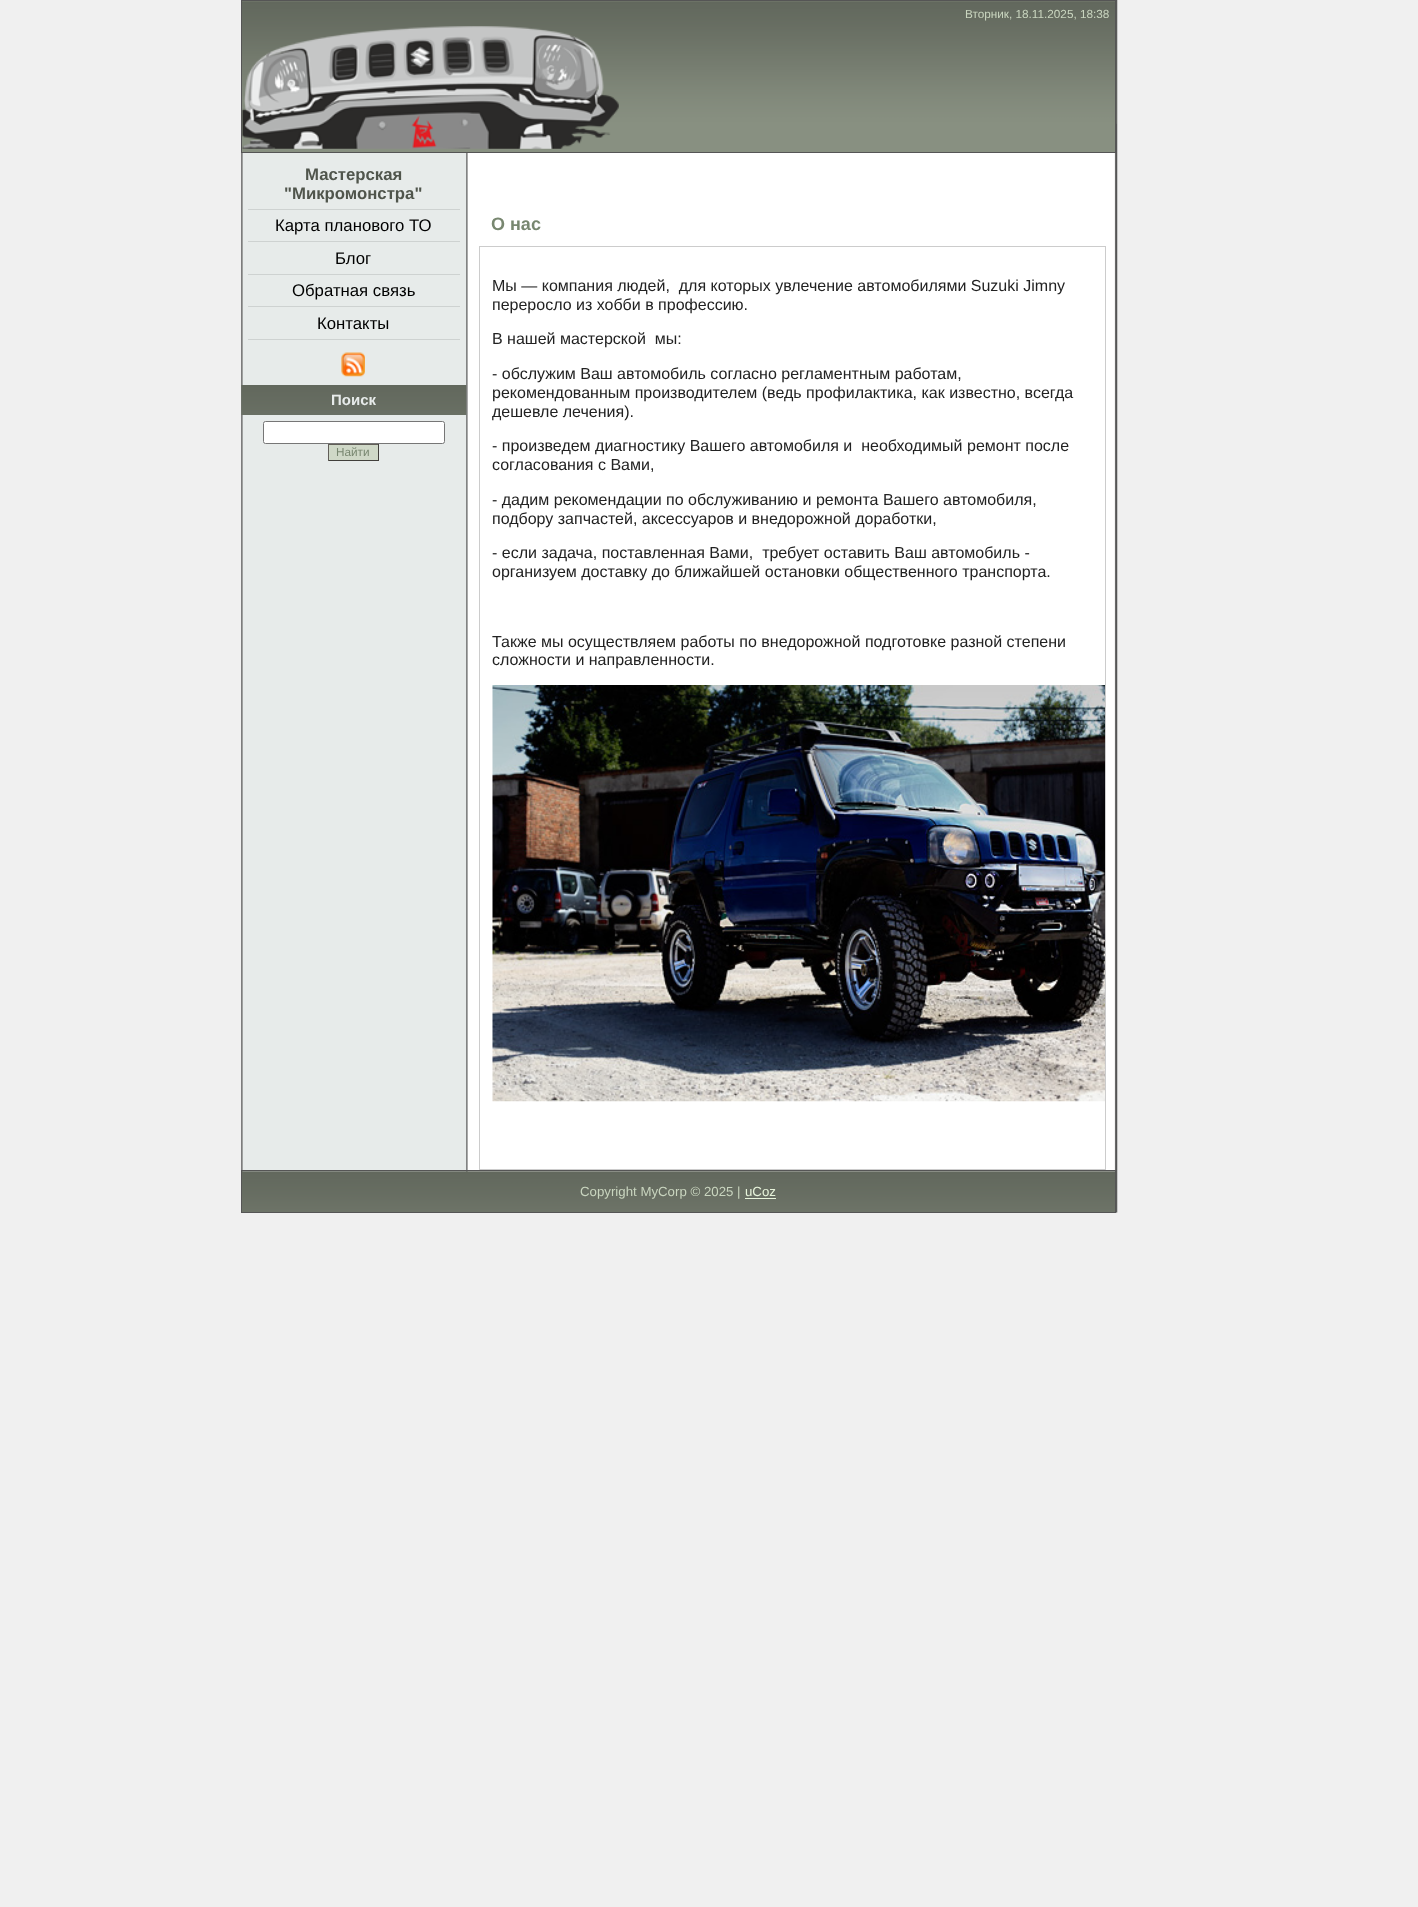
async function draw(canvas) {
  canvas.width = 1418
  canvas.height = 1907
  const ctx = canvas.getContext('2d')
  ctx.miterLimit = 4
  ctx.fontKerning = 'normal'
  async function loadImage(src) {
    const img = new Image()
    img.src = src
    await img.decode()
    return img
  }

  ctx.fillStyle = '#f0f0f0'
  ctx.fillRect(0, 0, 1418, 1907)
  ctx.drawImage(await loadImage('image0.png'), 241, 0, 877, 1213)
  ctx.fillStyle = '#889081'
  ctx.fillRect(242, 1, 873, 151)
  ctx.drawImage(await loadImage('image1.png'), 242, 1, 875, 123)
  ctx.strokeStyle = '#555'
  ctx.strokeRect(241.5, 0.5, 874, 152)
  ctx.font = '11.75px Liberation Sans'
  ctx.fillStyle = '#c9d5bf'
  ctx.fillText('Вторник, 18.11.2025, 18:38', 965, 18)
  ctx.drawImage(await loadImage('image2.png'), 242, 26, 377, 123)
  ctx.fillStyle = '#ced2d1'
  ctx.fillRect(248, 209, 212, 1)
  ctx.font = 'bold 16.75px Liberation Sans'
  ctx.fillStyle = '#50554c'
  ctx.fillText('Мастерская', 305, 180)
  ctx.fillText('"Микромонстра"', 284, 199)
  ctx.fillStyle = '#ced2d1'
  ctx.fillRect(248, 241, 212, 1)
  ctx.font = '16.75px Liberation Sans'
  ctx.fillStyle = '#000'
  ctx.fillText('Карта планового ТО', 275, 231)
  ctx.fillStyle = '#ced2d1'
  ctx.fillRect(248, 274, 212, 1)
  ctx.fillStyle = '#000'
  ctx.fillText('Блог', 335, 264)
  ctx.fillStyle = '#ced2d1'
  ctx.fillRect(248, 306, 212, 1)
  ctx.fillStyle = '#000'
  ctx.fillText('Обратная связь', 292, 296)
  ctx.fillStyle = '#ced2d1'
  ctx.fillRect(248, 339, 212, 1)
  ctx.fillStyle = '#000'
  ctx.fillText('Контакты', 317, 329)
  ctx.drawImage(await loadImage('image3.png'), 341, 352, 24, 25)
  ctx.drawImage(await loadImage('image4.png'), 241, 385, 226, 30)
  ctx.font = 'bold 15px Liberation Sans'
  ctx.fillStyle = '#e7ebea'
  ctx.fillText('Поиск', 331, 405)
  ctx.fillStyle = '#fff'
  ctx.beginPath()
  ctx.roundRect(263.5, 421.5, 181, 22, 2)
  ctx.fill()
  ctx.strokeStyle = '#767676'
  ctx.stroke()
  ctx.fillStyle = '#cfd8c7'
  ctx.fillRect(329, 445, 49, 15)
  ctx.fillStyle = '#615e58'
  ctx.fillRect(328, 444, 51, 1)
  ctx.fillStyle = '#413f3b'
  ctx.fillRect(378, 444, 1, 17)
  ctx.fillRect(328, 460, 51, 1)
  ctx.fillStyle = '#615e58'
  ctx.fillRect(328, 444, 1, 17)
  ctx.font = '11.75px Liberation Sans'
  ctx.fillStyle = '#788770'
  ctx.fillText('Найти', 336, 456)
  ctx.font = 'bold 18px Liberation Sans'
  ctx.fillText('О нас', 491, 230)
  ctx.strokeStyle = '#ccc'
  ctx.strokeRect(479.5, 246.5, 626, 923)
  ctx.font = '16px Liberation Sans'
  ctx.fillStyle = '#222'
  ctx.fillText('Мы — компания людей,  для которых увлечение автомобилями Suzuki Jimny', 492, 291)
  ctx.fillText('переросло из хобби в профессию.', 492, 310)
  ctx.fillText('В нашей мастерской  мы:', 492, 344)
  ctx.fillText('- обслужим Ваш автомобиль согласно регламентным работам,', 492, 379)
  ctx.fillText('рекомендованным производителем (ведь профилактика, как известно, всегда', 492, 398)
  ctx.fillText('дешевле лечения).', 492, 417)
  ctx.fillText('- произведем диагностику Вашего автомобиля и  необходимый ремонт после', 492, 451)
  ctx.fillText('согласования с Вами,', 492, 470)
  ctx.fillText('- дадим рекомендации по обслуживанию и ремонта Вашего автомобиля,', 492, 505)
  ctx.fillText('подбору запчастей, аксессуаров и внедорожной доработки,', 492, 524)
  ctx.fillText('- если задача, поставленная Вами,  требует оставить Ваш автомобиль -', 492, 558)
  ctx.fillText('организуем доставку до ближайшей остановки общественного транспорта.', 492, 577)
  ctx.fillText('Также мы осуществляем работы по внедорожной подготовке разной степени', 492, 647)
  ctx.fillText('сложности и направленности.', 492, 665)
  ctx.drawImage(await loadImage('image5.png'), 492, 685, 613, 417)
  ctx.drawImage(await loadImage('image6.png'), 242, 1171, 875, 42)
  ctx.strokeStyle = '#555'
  ctx.strokeRect(241.5, 1170.5, 874, 42)
  ctx.font = '13.25px Liberation Sans'
  ctx.fillStyle = '#c9d5bf'
  ctx.fillText('Copyright MyCorp © 2025 |', 580, 1196)
  ctx.fillStyle = '#e7f4db'
  ctx.fillText('uCoz', 745, 1196)
  ctx.fillRect(745, 1198, 31, 1)
}

draw(document.querySelector('canvas'))
